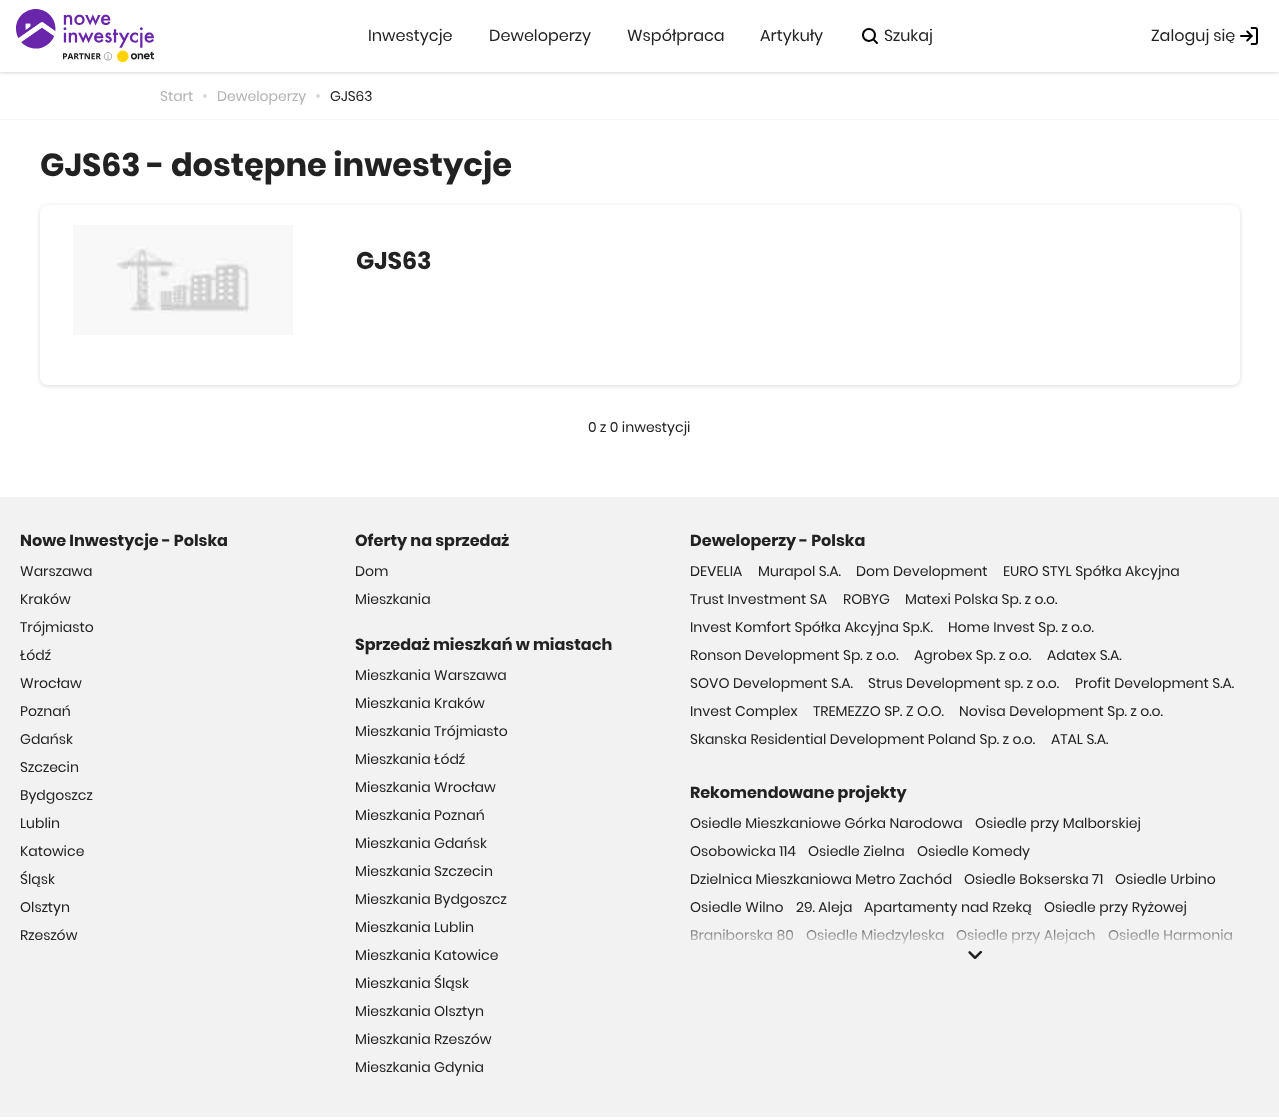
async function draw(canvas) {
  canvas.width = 1279
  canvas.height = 1120
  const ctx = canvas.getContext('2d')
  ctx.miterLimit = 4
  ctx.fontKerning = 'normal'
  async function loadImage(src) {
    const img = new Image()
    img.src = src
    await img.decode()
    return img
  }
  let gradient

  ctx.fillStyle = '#fff'
  ctx.fillRect(0, 0, 1279, 1120)
  ctx.fillStyle = '#f7f7f7'
  ctx.fillRect(0, 72, 1279, 1)
  ctx.save()
  ctx.beginPath()
  ctx.rect(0, 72, 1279, 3)
  ctx.clip()
  ctx.fillStyle = '#0000001f'
  ctx.filter = 'blur(2.5px)'
  ctx.beginPath()
  ctx.rect(0, 1, 1279, 72)
  ctx.fill()
  ctx.filter = 'none'
  ctx.restore()
  ctx.drawImage(await loadImage('image0.png'), 16, 9, 138, 40)
  ctx.drawImage(await loadImage('image1.png'), 63, 52, 50, 9)
  ctx.drawImage(await loadImage('image2.png'), 117, 50, 37, 12)
  ctx.font = '16px Poppins'
  ctx.fillStyle = '#222'
  ctx.fillText('Inwestycje', 368, 41)
  ctx.fillText('Deweloperzy', 489, 41)
  ctx.fillText('Współpraca', 627, 41)
  ctx.fillText('Artykuły', 760, 41)
  ctx.drawImage(await loadImage('image3.png'), 862, 28, 16, 16)
  ctx.fillText('Szukaj', 884, 41)
  ctx.fillText('Zaloguj się', 1151, 41)
  ctx.drawImage(await loadImage('image4.png'), 1240, 27, 18, 18)
  ctx.fillStyle = '#f7f7f7'
  ctx.fillRect(0, 119, 1279, 1)
  ctx.font = '14px Poppins'
  ctx.fillStyle = '#b3b3b3'
  ctx.fillText('Start', 160, 101)
  ctx.fillStyle = '#d8d8d8'
  ctx.beginPath()
  ctx.arc(205, 96, 2, 0, 2 * Math.PI)
  ctx.fill()
  ctx.fillStyle = '#b3b3b3'
  ctx.fillText('Deweloperzy', 217, 101)
  ctx.fillStyle = '#d8d8d8'
  ctx.beginPath()
  ctx.arc(318, 96, 2, 0, 2 * Math.PI)
  ctx.fill()
  ctx.fillStyle = '#222'
  ctx.fillText('GJS63', 330, 101)
  ctx.font = 'bold 32px Poppins'
  ctx.fillText('GJS63 - dostępne inwestycje', 40, 176)
  ctx.save()
  ctx.beginPath()
  ctx.moveTo(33, 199)
  ctx.lineTo(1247, 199)
  ctx.lineTo(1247, 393)
  ctx.lineTo(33, 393)
  ctx.closePath()
  ctx.moveTo(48, 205)
  ctx.lineTo(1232, 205)
  ctx.bezierCurveTo(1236.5, 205, 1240, 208.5, 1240, 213)
  ctx.lineTo(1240, 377)
  ctx.bezierCurveTo(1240, 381.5, 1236.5, 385, 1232, 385)
  ctx.lineTo(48, 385)
  ctx.bezierCurveTo(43.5, 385, 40, 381.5, 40, 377)
  ctx.lineTo(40, 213)
  ctx.bezierCurveTo(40, 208.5, 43.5, 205, 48, 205)
  ctx.closePath()
  ctx.clip('evenodd')
  ctx.fillStyle = '#00000026'
  ctx.filter = 'blur(2px)'
  ctx.beginPath()
  ctx.roundRect(40, 206, 1200, 180, 8)
  ctx.fill()
  ctx.filter = 'none'
  ctx.restore()
  ctx.drawImage(await loadImage('image5.png'), 73, 225, 220, 110)
  ctx.font = 'bold 24px Poppins'
  ctx.fillText('GJS63', 356, 269)
  ctx.font = '14px Poppins'
  ctx.fillText('0 z 0 inwestycji', 588, 432)
  ctx.fillStyle = '#f2f2f2'
  ctx.fillRect(0, 497, 1279, 620)
  ctx.font = 'bold 16px Poppins'
  ctx.fillStyle = '#222'
  ctx.fillText('Nowe Inwestycje - Polska', 20, 546)
  ctx.font = '14px Poppins'
  ctx.fillText('Warszawa', 20, 576)
  ctx.fillText('Kraków', 20, 604)
  ctx.fillText('Trójmiasto', 20, 632)
  ctx.fillText('Łódź', 20, 660)
  ctx.fillText('Wrocław', 20, 688)
  ctx.fillText('Poznań', 20, 716)
  ctx.fillText('Gdańsk', 20, 744)
  ctx.fillText('Szczecin', 20, 772)
  ctx.fillText('Bydgoszcz', 20, 800)
  ctx.fillText('Lublin', 20, 828)
  ctx.fillText('Katowice', 20, 856)
  ctx.fillText('Śląsk', 20, 884)
  ctx.fillText('Olsztyn', 20, 912)
  ctx.fillText('Rzeszów', 20, 940)
  ctx.font = 'bold 16px Poppins'
  ctx.fillText('Oferty na sprzedaż', 355, 546)
  ctx.font = '14px Poppins'
  ctx.fillText('Dom', 355, 576)
  ctx.fillText('Mieszkania', 355, 604)
  ctx.font = 'bold 16px Poppins'
  ctx.fillText('Sprzedaż mieszkań w miastach', 355, 650)
  ctx.font = '14px Poppins'
  ctx.fillText('Mieszkania Warszawa', 355, 680)
  ctx.fillText('Mieszkania Kraków', 355, 708)
  ctx.fillText('Mieszkania Trójmiasto', 355, 736)
  ctx.fillText('Mieszkania Łódź', 355, 764)
  ctx.fillText('Mieszkania Wrocław', 355, 792)
  ctx.fillText('Mieszkania Poznań', 355, 820)
  ctx.fillText('Mieszkania Gdańsk', 355, 848)
  ctx.fillText('Mieszkania Szczecin', 355, 876)
  ctx.fillText('Mieszkania Bydgoszcz', 355, 904)
  ctx.fillText('Mieszkania Lublin', 355, 932)
  ctx.fillText('Mieszkania Katowice', 355, 960)
  ctx.fillText('Mieszkania Śląsk', 355, 988)
  ctx.fillText('Mieszkania Olsztyn', 355, 1016)
  ctx.fillText('Mieszkania Rzeszów', 355, 1044)
  ctx.fillText('Mieszkania Gdynia', 355, 1072)
  ctx.font = 'bold 16px Poppins'
  ctx.fillText('Deweloperzy - Polska', 690, 546)
  ctx.font = '14px Poppins'
  ctx.fillText('DEVELIA', 690, 576)
  ctx.fillText('Murapol S.A.', 758, 576)
  ctx.fillText('Dom Development', 856, 576)
  ctx.fillText('EURO STYL Spółka Akcyjna', 1003, 576)
  ctx.fillText('Trust Investment SA', 690, 604)
  ctx.fillText('ROBYG', 843, 604)
  ctx.fillText('Matexi Polska Sp. z o.o.', 905, 604)
  ctx.fillText('Invest Komfort Spółka Akcyjna Sp.K.', 690, 632)
  ctx.fillText('Home Invest Sp. z o.o.', 948, 632)
  ctx.fillText('Ronson Development Sp. z o.o.', 690, 660)
  ctx.fillText('Agrobex Sp. z o.o.', 914, 660)
  ctx.fillText('Adatex S.A.', 1047, 660)
  ctx.fillText('SOVO Development S.A.', 690, 688)
  ctx.fillText('Strus Development sp. z o.o.', 868, 688)
  ctx.fillText('Profit Development S.A.', 1075, 688)
  ctx.fillText('Invest Complex', 690, 716)
  ctx.fillText('TREMEZZO SP. Z O.O.', 813, 716)
  ctx.fillText('Novisa Development Sp. z o.o.', 959, 716)
  ctx.fillText('Skanska Residential Development Poland Sp. z o.o.', 690, 744)
  ctx.fillText('ATAL S.A.', 1051, 744)
  ctx.font = 'bold 16px Poppins'
  ctx.fillText('Rekomendowane projekty', 690, 798)
  ctx.font = '14px Poppins'
  ctx.fillText('Osiedle Mieszkaniowe Górka Narodowa', 690, 828)
  ctx.fillText('Osiedle przy Malborskiej', 975, 828)
  ctx.fillText('Osobowicka 114', 690, 856)
  ctx.fillText('Osiedle Zielna', 808, 856)
  ctx.fillText('Osiedle Komedy', 917, 856)
  ctx.fillText('Dzielnica Mieszkaniowa Metro Zachód', 690, 884)
  ctx.fillText('Osiedle Bokserska 71', 964, 884)
  ctx.fillText('Osiedle Urbino', 1115, 884)
  ctx.fillText('Osiedle Wilno', 690, 912)
  ctx.fillText('29. Aleja', 796, 912)
  ctx.fillText('Apartamenty nad Rzeką', 864, 912)
  ctx.fillText('Osiedle przy Ryżowej', 1044, 912)
  ctx.fillText('Braniborska 80', 690, 940)
  ctx.fillText('Osiedle Miedzyleska', 806, 940)
  ctx.fillText('Osiedle przy Alejach', 956, 940)
  ctx.fillText('Osiedle Harmonia', 1108, 940)
  gradient = ctx.createLinearGradient(975, 919, 975, 983)
  gradient.addColorStop(0, '#f2f2f200')
  gradient.addColorStop(0.43, '#f2f2f2f2')
  gradient.addColorStop(0.71, '#f2f2f2')
  ctx.fillStyle = gradient
  ctx.fillRect(691, 929, 541, 15)
  ctx.drawImage(await loadImage('image6.png'), 968, 951, 14, 8)
}

draw(document.querySelector('canvas'))
